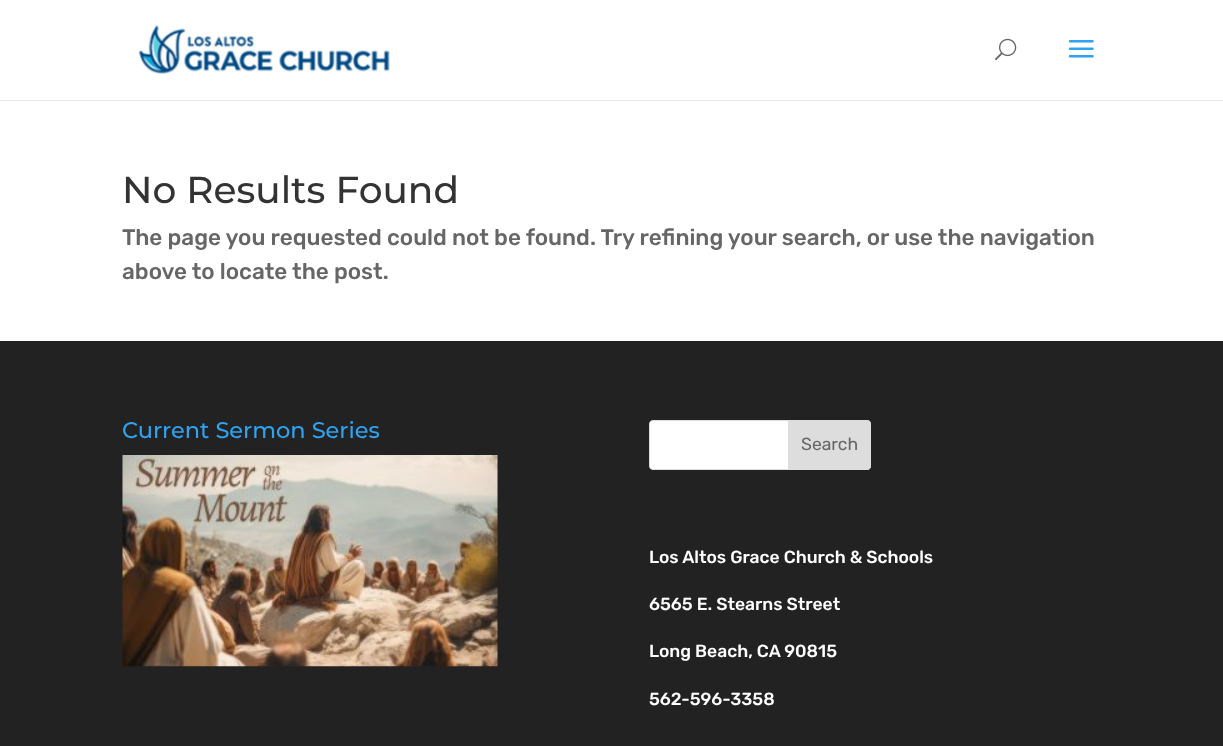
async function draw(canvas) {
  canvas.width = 1223
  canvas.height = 746
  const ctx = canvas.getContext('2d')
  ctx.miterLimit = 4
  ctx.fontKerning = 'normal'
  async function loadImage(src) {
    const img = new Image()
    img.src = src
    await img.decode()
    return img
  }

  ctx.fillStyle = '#fff'
  ctx.fillRect(0, 0, 1223, 746)
  ctx.fillStyle = '#e6e6e6'
  ctx.beginPath()
  ctx.moveTo(0, 100)
  ctx.lineTo(0, 101)
  ctx.lineTo(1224, 101)
  ctx.lineTo(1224, 1)
  ctx.lineTo(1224, 100)
  ctx.closePath()
  ctx.fill()
  ctx.drawImage(await loadImage('image0.png'), 138, 25, 252, 49)
  ctx.drawImage(await loadImage('image1.png'), 995, 38, 22, 23)
  ctx.drawImage(await loadImage('image2.png'), 1068, 40, 26, 18)
  ctx.font = '100 37.5px Montserrat'
  ctx.fillStyle = '#333'
  ctx.fillText('No Results Found', 122, 203)
  ctx.font = '300 22.5px Rubik'
  ctx.fillStyle = '#666'
  ctx.fillText('The page you requested could not be found. Try refining your search, or use the navigation', 122, 245)
  ctx.fillText('above to locate the post.', 122, 279)
  ctx.fillStyle = '#222'
  ctx.fillRect(0, 341, 1223, 405)
  ctx.font = '100 22.5px Montserrat'
  ctx.fillStyle = '#2ea3f2'
  ctx.fillText('Current Sermon Series', 122, 438)
  ctx.drawImage(await loadImage('image3.png'), 122, 455, 376, 212)
  ctx.fillStyle = '#fff'
  ctx.beginPath()
  ctx.roundRect(649.5, 420.5, 221, 49, 3.5)
  ctx.fill()
  ctx.strokeStyle = '#ddd'
  ctx.stroke()
  ctx.fillStyle = '#ddd'
  ctx.beginPath()
  ctx.roundRect(788.5, 420.5, 82, 49, [0, 3.5, 3.5, 0])
  ctx.fill()
  ctx.stroke()
  ctx.font = '300 17.5px "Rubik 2"'
  ctx.fillStyle = '#666'
  ctx.fillText('Search', 801, 450)
  ctx.font = '300 17.5px Rubik'
  ctx.fillStyle = '#fff'
  ctx.fillText('Los Altos Grace Church & Schools', 649, 563)
  ctx.fillText('6565 E. Stearns Street', 649, 610)
  ctx.fillText('Long Beach, CA 90815', 649, 657)
  ctx.fillText('562-596-3358', 649, 705)
}

draw(document.querySelector('canvas'))
